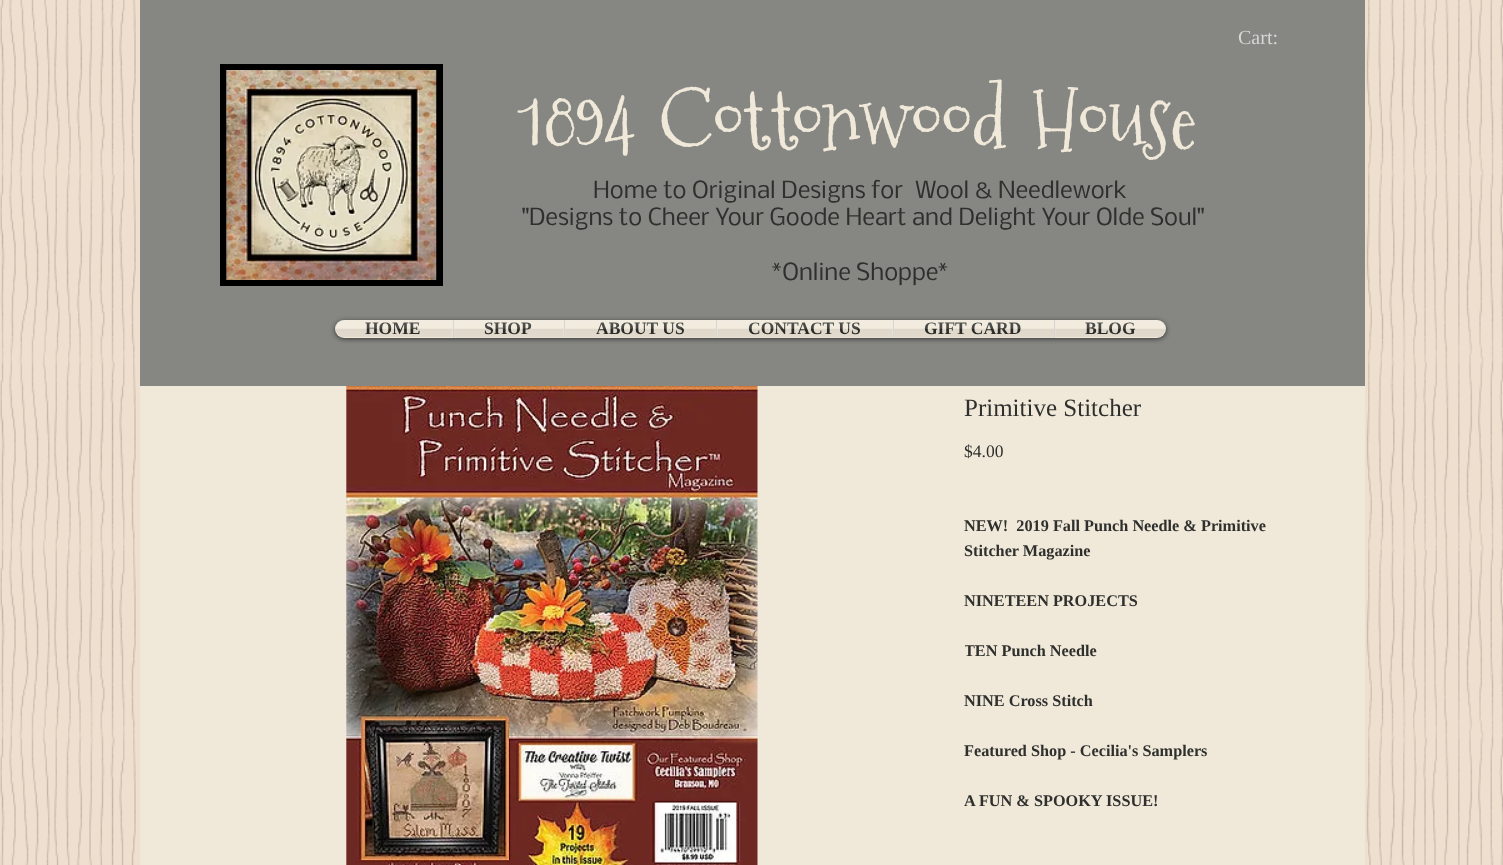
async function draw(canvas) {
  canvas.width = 1503
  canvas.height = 865
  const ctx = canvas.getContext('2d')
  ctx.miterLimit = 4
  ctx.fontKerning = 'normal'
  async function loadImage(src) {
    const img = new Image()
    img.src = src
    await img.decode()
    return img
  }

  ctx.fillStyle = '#efdfcf'
  ctx.fillRect(0, 0, 1503, 865)
  ctx.drawImage(await loadImage('image0.png'), 0, 0, 1503, 865)
  ctx.fillStyle = '#868783'
  ctx.fillRect(140, 0, 1225, 386)
  ctx.font = '20px Liberation Serif'
  ctx.fillStyle = '#d6d7d4'
  ctx.fillText('Cart:', 1238, 44)
  ctx.fillStyle = '#000'
  ctx.fillRect(220, 64, 223, 222)
  ctx.drawImage(await loadImage('image1.png'), 226, 70, 211, 210)
  ctx.font = '82.5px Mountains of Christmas'
  ctx.fillStyle = '#f0e9da'
  ctx.fillText('1894 Cottonwood House', 520, 149)
  ctx.font = '22.5px Nobile'
  ctx.fillStyle = '#2f302d'
  ctx.fillText('Home to Original Designs for', 593, 198)
  ctx.fillText('Wool & Needlework', 915, 198)
  ctx.fillText('"Designs to Cheer Your Goode Heart and Delight Your Olde Soul"', 522, 225)
  ctx.fillText('*Online Shoppe*', 772, 280)
  ctx.fillStyle = '#00000099'
  ctx.filter = 'blur(2.5px)'
  ctx.beginPath()
  ctx.roundRect(335, 321, 831, 18, 9)
  ctx.fill()
  ctx.filter = 'none'
  ctx.drawImage(await loadImage('image2.png'), 335, 320, 831, 17)
  ctx.fillStyle = '#f0e9da'
  ctx.beginPath()
  ctx.roundRect(335, 320, 118, 18, [9, 0, 0, 9])
  ctx.fill()
  ctx.font = 'bold 17.5px Liberation Serif'
  ctx.fillStyle = '#2f302d'
  ctx.fillText('HOME', 365, 334)
  ctx.drawImage(await loadImage('image3.png'), 335, 320, 118, 17)
  ctx.fillStyle = '#f0e9da'
  ctx.fillRect(454, 320, 110, 18)
  ctx.fillStyle = '#d6d7d4'
  ctx.fillRect(453, 320, 1, 18)
  ctx.fillStyle = '#2f302d'
  ctx.fillText('SHOP', 484, 334)
  ctx.drawImage(await loadImage('image4.png'), 453, 320, 111, 18)
  ctx.fillStyle = '#f0e9da'
  ctx.fillRect(565, 320, 151, 18)
  ctx.fillStyle = '#d6d7d4'
  ctx.fillRect(564, 320, 1, 18)
  ctx.fillStyle = '#2f302d'
  ctx.fillText('ABOUT US', 596, 334)
  ctx.drawImage(await loadImage('image5.png'), 565, 320, 151, 18)
  ctx.fillStyle = '#f0e9da'
  ctx.fillRect(717, 320, 176, 18)
  ctx.fillStyle = '#d6d7d4'
  ctx.fillRect(716, 320, 1, 18)
  ctx.fillStyle = '#2f302d'
  ctx.fillText('CONTACT US', 748, 334)
  ctx.drawImage(await loadImage('image6.png'), 717, 320, 176, 18)
  ctx.fillStyle = '#f0e9da'
  ctx.fillRect(894, 320, 160, 18)
  ctx.fillStyle = '#d6d7d4'
  ctx.fillRect(893, 320, 1, 18)
  ctx.fillStyle = '#2f302d'
  ctx.fillText('GIFT CARD', 924, 334)
  ctx.drawImage(await loadImage('image7.png'), 894, 320, 160, 18)
  ctx.fillStyle = '#f0e9da'
  ctx.beginPath()
  ctx.roundRect(1054, 320, 112, 18, [0, 9, 9, 0])
  ctx.fill()
  ctx.fillStyle = '#d6d7d4'
  ctx.fillRect(1054, 320, 1, 18)
  ctx.fillStyle = '#2f302d'
  ctx.fillText('BLOG', 1085, 334)
  ctx.drawImage(await loadImage('image8.png'), 1055, 320, 111, 17)
  ctx.fillStyle = '#f0e9da'
  ctx.fillRect(140, 386, 1225, 479)
  ctx.drawImage(await loadImage('image9.png'), 346, 386, 412, 479)
  ctx.font = '25px Liberation Serif'
  ctx.fillStyle = '#2f302d'
  ctx.fillText('Primitive Stitcher', 964, 416)
  ctx.font = '17.5px Liberation Serif'
  ctx.fillText('$4.00', 964, 457)
  ctx.font = 'bold 16.25px Liberation Serif'
  ctx.fillText('NEW!  2019 Fall Punch Needle & Primitive', 964, 531)
  ctx.fillText('Stitcher Magazine', 964, 556)
  ctx.fillText('NINETEEN PROJECTS', 964, 606)
  ctx.save()
  ctx.beginPath()
  ctx.rect(965, 489, 350, 350)
  ctx.clip()
  ctx.fillText('TEN Punch Needle', 964, 656)
  ctx.restore()
  ctx.fillText('NINE Cross Stitch', 964, 706)
  ctx.fillText('Featured Shop - Cecilia\'s Samplers', 964, 756)
  ctx.fillText('A FUN & SPOOKY ISSUE!', 964, 806)
}

draw(document.querySelector('canvas'))
